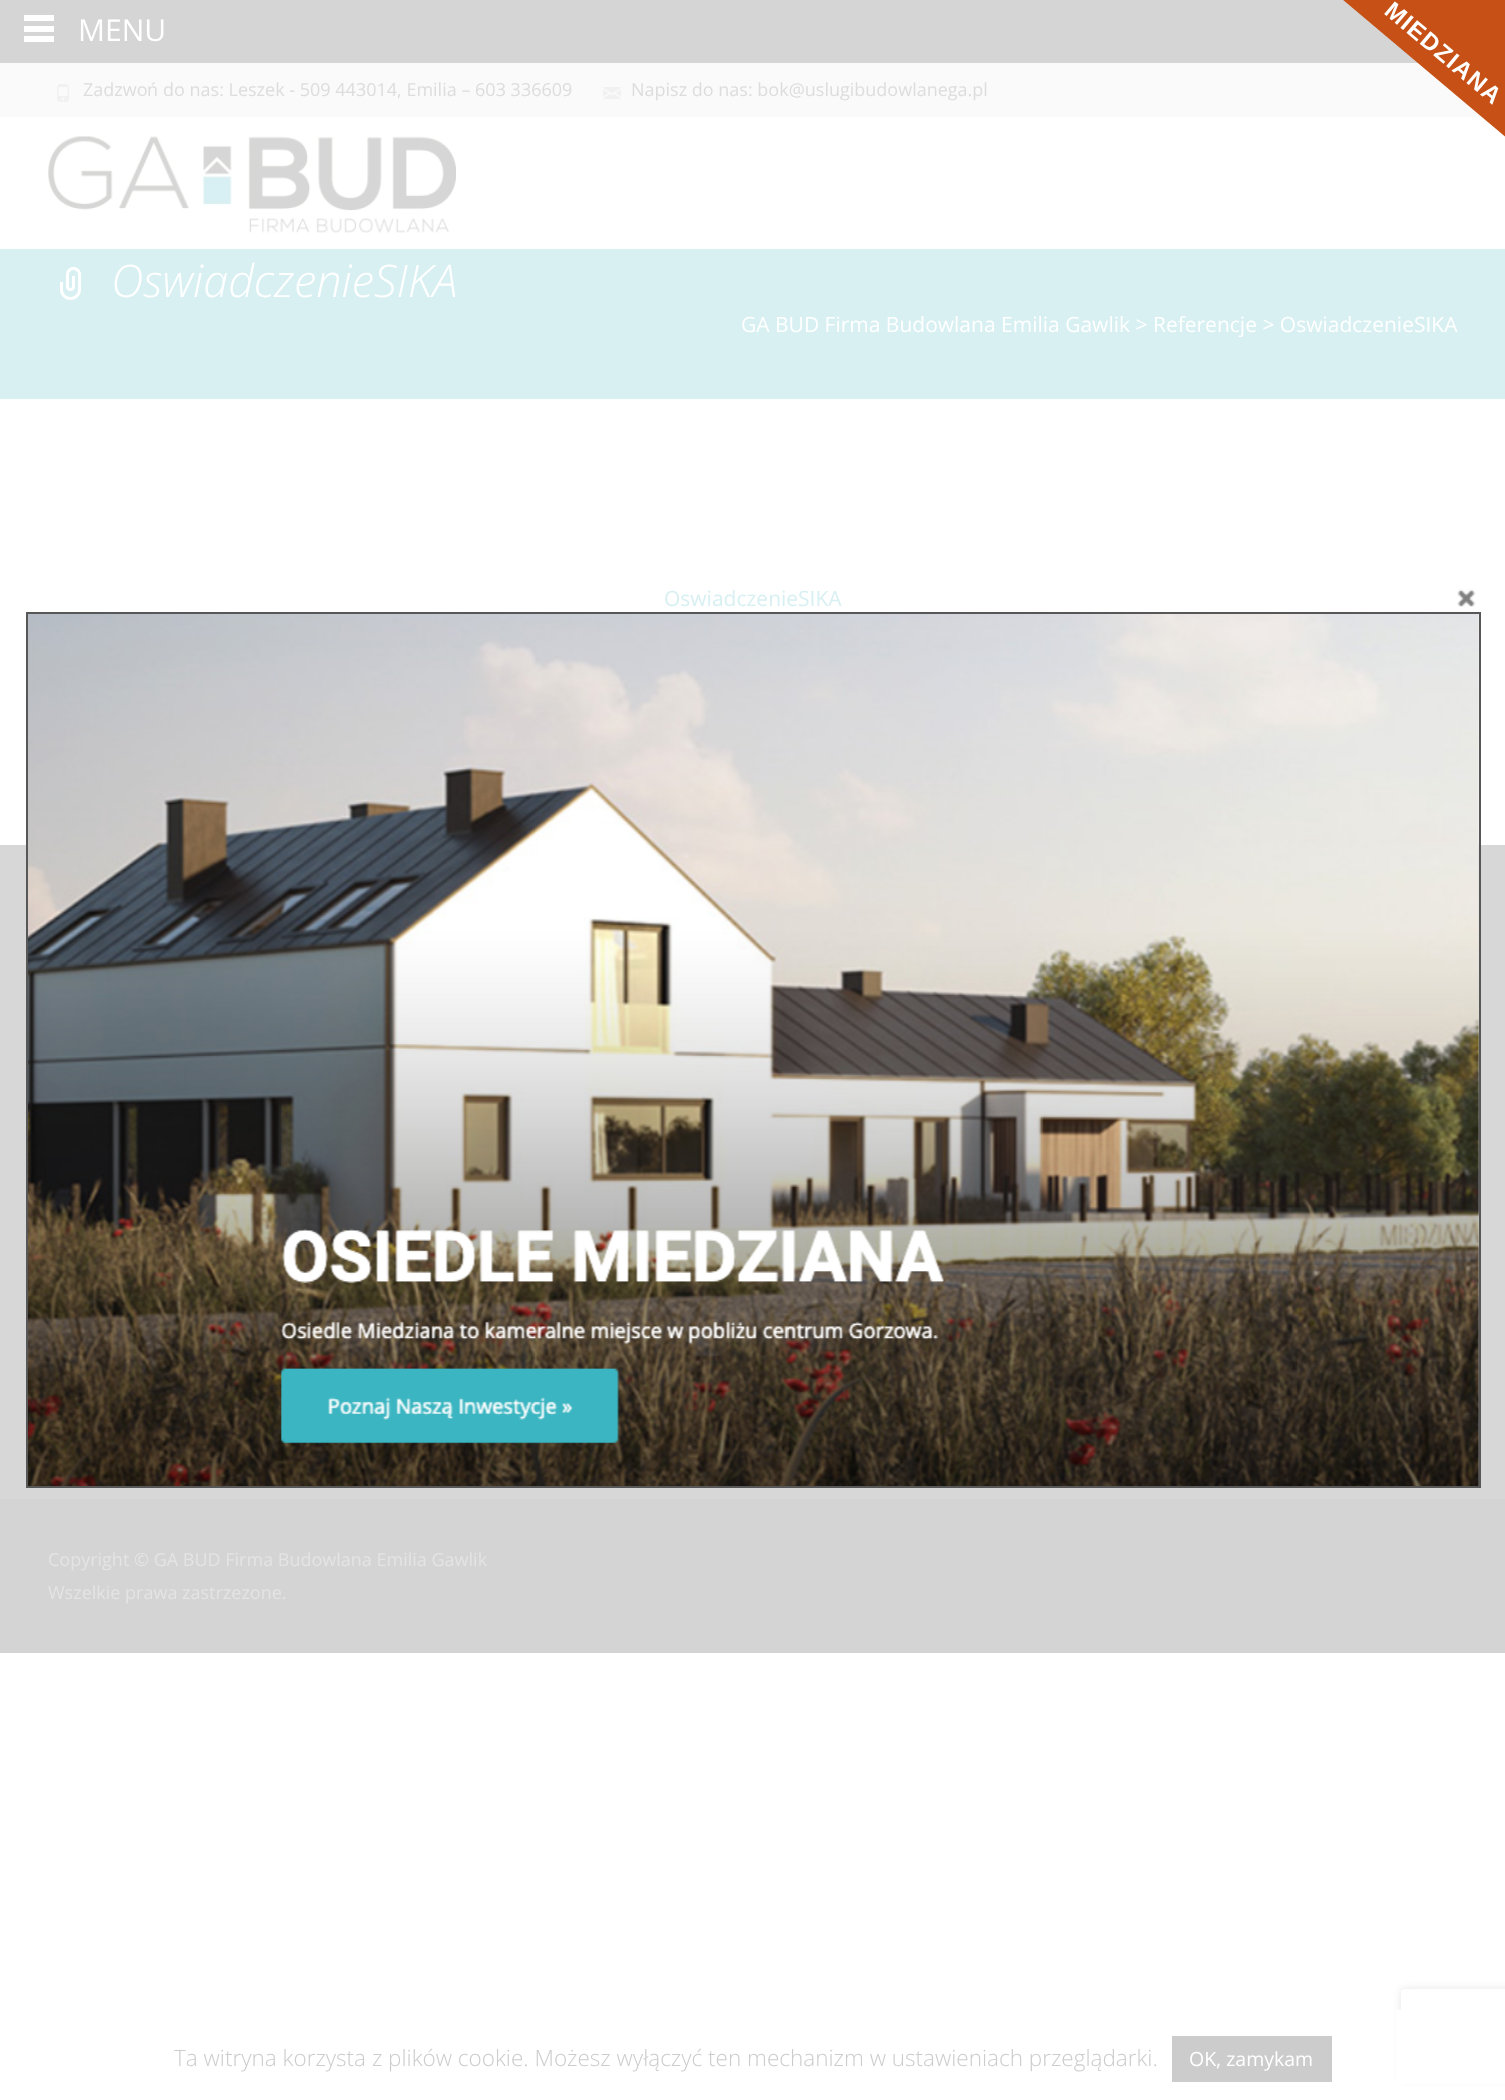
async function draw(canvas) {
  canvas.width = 1505
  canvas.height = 2100
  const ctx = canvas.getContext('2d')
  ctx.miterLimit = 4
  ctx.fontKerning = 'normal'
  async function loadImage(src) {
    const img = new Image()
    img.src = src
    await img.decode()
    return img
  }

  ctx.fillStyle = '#fff'
  ctx.fillRect(0, 0, 1505, 2100)
  ctx.fillStyle = '#d5d5d5'
  ctx.fillRect(0, 0, 1418, 63)
  ctx.fillStyle = '#fff'
  ctx.fillRect(24, 15, 30, 6)
  ctx.fillRect(24, 26, 30, 6)
  ctx.fillRect(24, 36, 30, 6)
  ctx.font = '30px Open Sans'
  ctx.fillText('MENU', 78, 41)
  ctx.fillStyle = '#fafafa'
  ctx.fillRect(0, 63, 1481, 53)
  ctx.fillRect(0, 116, 1482, 1)
  ctx.fillStyle = '#c65015'
  ctx.beginPath()
  ctx.moveTo(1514, 144)
  ctx.lineTo(1342, -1)
  ctx.bezierCurveTo(1338, -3, 1338, -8, 1341, -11)
  ctx.lineTo(1485, -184)
  ctx.bezierCurveTo(1488, -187, 1493, -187, 1496, -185)
  ctx.lineTo(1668, -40)
  ctx.bezierCurveTo(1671, -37, 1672, -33, 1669, -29)
  ctx.lineTo(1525, 143)
  ctx.bezierCurveTo(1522, 146, 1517, 147, 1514, 144)
  ctx.closePath()
  ctx.fill()
  ctx.letterSpacing = '1.25px'
  ctx.font = 'bold 24px Liberation Sans'
  ctx.fillStyle = '#fff'
  ctx.save()
  ctx.translate(1383, 13)
  ctx.rotate(40 * Math.PI / 180)
  ctx.fillText('MIEDZIANA', 0, 0)
  ctx.restore()
  ctx.drawImage(await loadImage('image0.png'), 57, 84, 12, 18)
  ctx.letterSpacing = '0px'
  ctx.font = '18px Open Sans'
  ctx.fillStyle = '#ddd'
  ctx.fillText('Zadzwo', 83, 96)
  ctx.font = '18px "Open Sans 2"'
  ctx.fillText('ń', 147, 96)
  ctx.font = '18px Open Sans'
  ctx.fillText('do nas: Leszek - 509 443014, Emilia – 603 336609', 163, 96)
  ctx.drawImage(await loadImage('image1.png'), 603, 87, 18, 12)
  ctx.fillText('Napisz do nas: bok@uslugibudowlanega.pl', 631, 96)
  ctx.drawImage(await loadImage('image2.png'), 48, 136, 408, 97)
  ctx.fillStyle = '#d8f0f2'
  ctx.fillRect(0, 249, 1505, 150)
  ctx.drawImage(await loadImage('image3.png'), 60, 267, 21, 33)
  ctx.font = 'italic 300 45px Open Sans'
  ctx.fillStyle = '#fff'
  ctx.fillText('OswiadczenieSIKA', 111, 297)
  ctx.font = '21px Open Sans'
  ctx.fillText('GA BUD Firma Budowlana Emilia Gawlik > Referencje > OswiadczenieSIKA', 741, 332)
  ctx.fillStyle = '#d8f0f2'
  ctx.fillText('OswiadczenieSIKA', 664, 606)
  ctx.fillStyle = '#d4d4d4'
  ctx.fillRect(0, 1499, 1505, 154)
  ctx.fillStyle = '#d7d7d7'
  ctx.fillRect(0, 845, 1505, 654)
  ctx.font = '18px Open Sans'
  ctx.fillStyle = '#e4e4e4'
  ctx.fillText('Copyright © GA BUD Firma Budowlana Emilia Gawlik', 48, 1566)
  ctx.fillText('Wszelkie prawa zastrzezone.', 48, 1599)
  ctx.drawImage(await loadImage('image4.png'), 1457, 589, 19, 18)
  ctx.drawImage(await loadImage('image5.png'), 28, 614, 1451, 872)
  ctx.strokeStyle = '#575757'
  ctx.lineWidth = 2
  ctx.strokeRect(27, 613, 1453, 874)
  ctx.save()
  ctx.beginPath()
  ctx.moveTo(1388, 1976)
  ctx.lineTo(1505, 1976)
  ctx.lineTo(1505, 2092)
  ctx.lineTo(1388, 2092)
  ctx.closePath()
  ctx.moveTo(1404, 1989)
  ctx.lineTo(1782, 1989)
  ctx.bezierCurveTo(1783.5, 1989, 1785, 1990.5, 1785, 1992)
  ctx.lineTo(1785, 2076)
  ctx.bezierCurveTo(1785, 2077.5, 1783.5, 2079, 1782, 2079)
  ctx.lineTo(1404, 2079)
  ctx.bezierCurveTo(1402.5, 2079, 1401, 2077.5, 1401, 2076)
  ctx.lineTo(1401, 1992)
  ctx.bezierCurveTo(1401, 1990.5, 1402.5, 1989, 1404, 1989)
  ctx.closePath()
  ctx.clip('evenodd')
  ctx.fillStyle = '#e6e6e6'
  ctx.filter = 'blur(4px)'
  ctx.beginPath()
  ctx.roundRect(1401, 1989, 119, 90, 3)
  ctx.fill()
  ctx.filter = 'none'
  ctx.restore()
  ctx.fillStyle = '#fff'
  ctx.fillRect(1396, 2010, 109, 74)
  ctx.font = '300 22.5px Open Sans'
  ctx.fillStyle = '#ccc'
  ctx.fillText('Ta witryna korzysta z plików cookie. Możesz wyłączyć ten mechanizm w ustawieniach przeglądarki.', 174, 2066)
  ctx.fillRect(1172, 2036, 160, 46)
  ctx.font = '19.5px Open Sans'
  ctx.fillStyle = '#fff'
  ctx.fillText('OK, zamykam', 1189, 2066)
}

draw(document.querySelector('canvas'))
